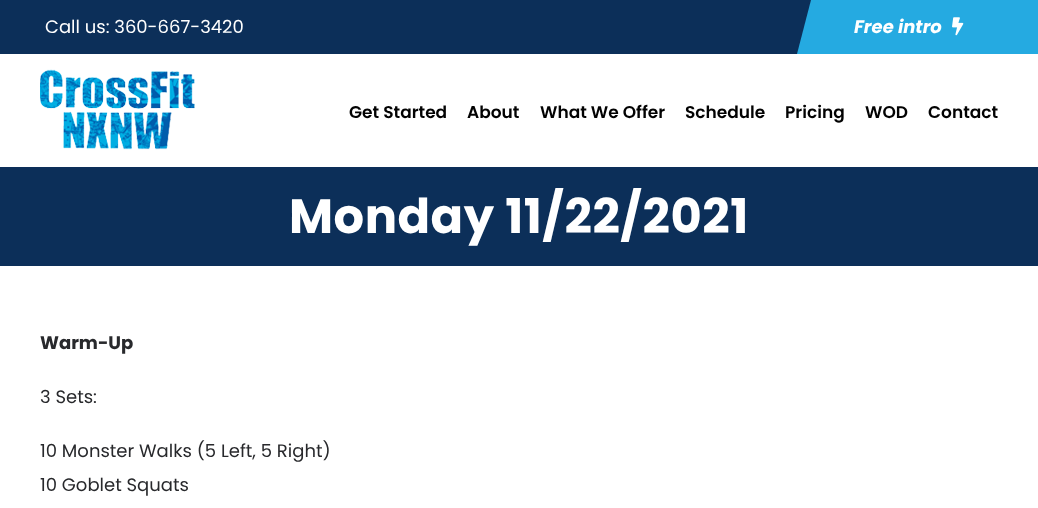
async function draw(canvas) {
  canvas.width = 1038
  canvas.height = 508
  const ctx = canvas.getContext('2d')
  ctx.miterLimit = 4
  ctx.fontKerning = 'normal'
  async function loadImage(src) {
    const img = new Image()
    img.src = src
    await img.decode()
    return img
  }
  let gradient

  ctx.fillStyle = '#fff'
  ctx.fillRect(0, 0, 1038, 508)
  ctx.fillStyle = '#0c2f59'
  ctx.fillRect(0, 0, 811, 54)
  ctx.font = '18px Poppins'
  ctx.fillStyle = '#fff'
  ctx.fillText('Call us: 360-667-3420', 45, 33)
  gradient = ctx.createLinearGradient(-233, 27, 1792, 27)
  gradient.addColorStop(0, '#b7b7b7')
  gradient.addColorStop(0.5, '#0c2f59')
  gradient.addColorStop(0.5, '#25aae1')
  gradient.addColorStop(1, '#25aae1')
  ctx.fillStyle = gradient
  ctx.beginPath()
  ctx.moveTo(811, 0)
  ctx.lineTo(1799, 0)
  ctx.lineTo(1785, 54)
  ctx.lineTo(797, 54)
  ctx.closePath()
  ctx.fill()
  ctx.font = 'italic bold 18px Poppins'
  ctx.fillStyle = '#fff'
  ctx.fillText('Free intro', 854, 33)
  ctx.drawImage(await loadImage('image0.png'), 952, 17, 12, 19)
  ctx.drawImage(await loadImage('image1.png'), 40, 69, 155, 81)
  ctx.font = '600 17px Poppins'
  ctx.fillStyle = '#020202'
  ctx.fillText('Get Started', 349, 118)
  ctx.fillText('About', 467, 118)
  ctx.fillText('What We Offer', 540, 118)
  ctx.fillText('Schedule', 685, 118)
  ctx.fillText('Pricing', 785, 118)
  ctx.fillText('WOD', 865, 118)
  ctx.fillText('Contact', 928, 118)
  ctx.fillStyle = '#0c2f59'
  ctx.fillRect(0, 167, 1038, 99)
  ctx.save()
  ctx.beginPath()
  ctx.rect(20, 188, 998, 60)
  ctx.clip()
  ctx.letterSpacing = '0.5px'
  ctx.font = 'bold 48px Poppins'
  ctx.fillStyle = '#fff'
  ctx.fillText('Monday 11/22/2021', 289, 233)
  ctx.restore()
  ctx.font = 'bold 18px Poppins'
  ctx.fillStyle = '#28292c'
  ctx.fillText('Warm-Up', 40, 349)
  ctx.font = '18px Poppins'
  ctx.fillText('3 Sets:', 40, 403)
  ctx.fillText('10 Monster Walks (5 Left, 5 Right)', 40, 457)
  ctx.fillText('10 Goblet Squats', 40, 491)
}

draw(document.querySelector('canvas'))
